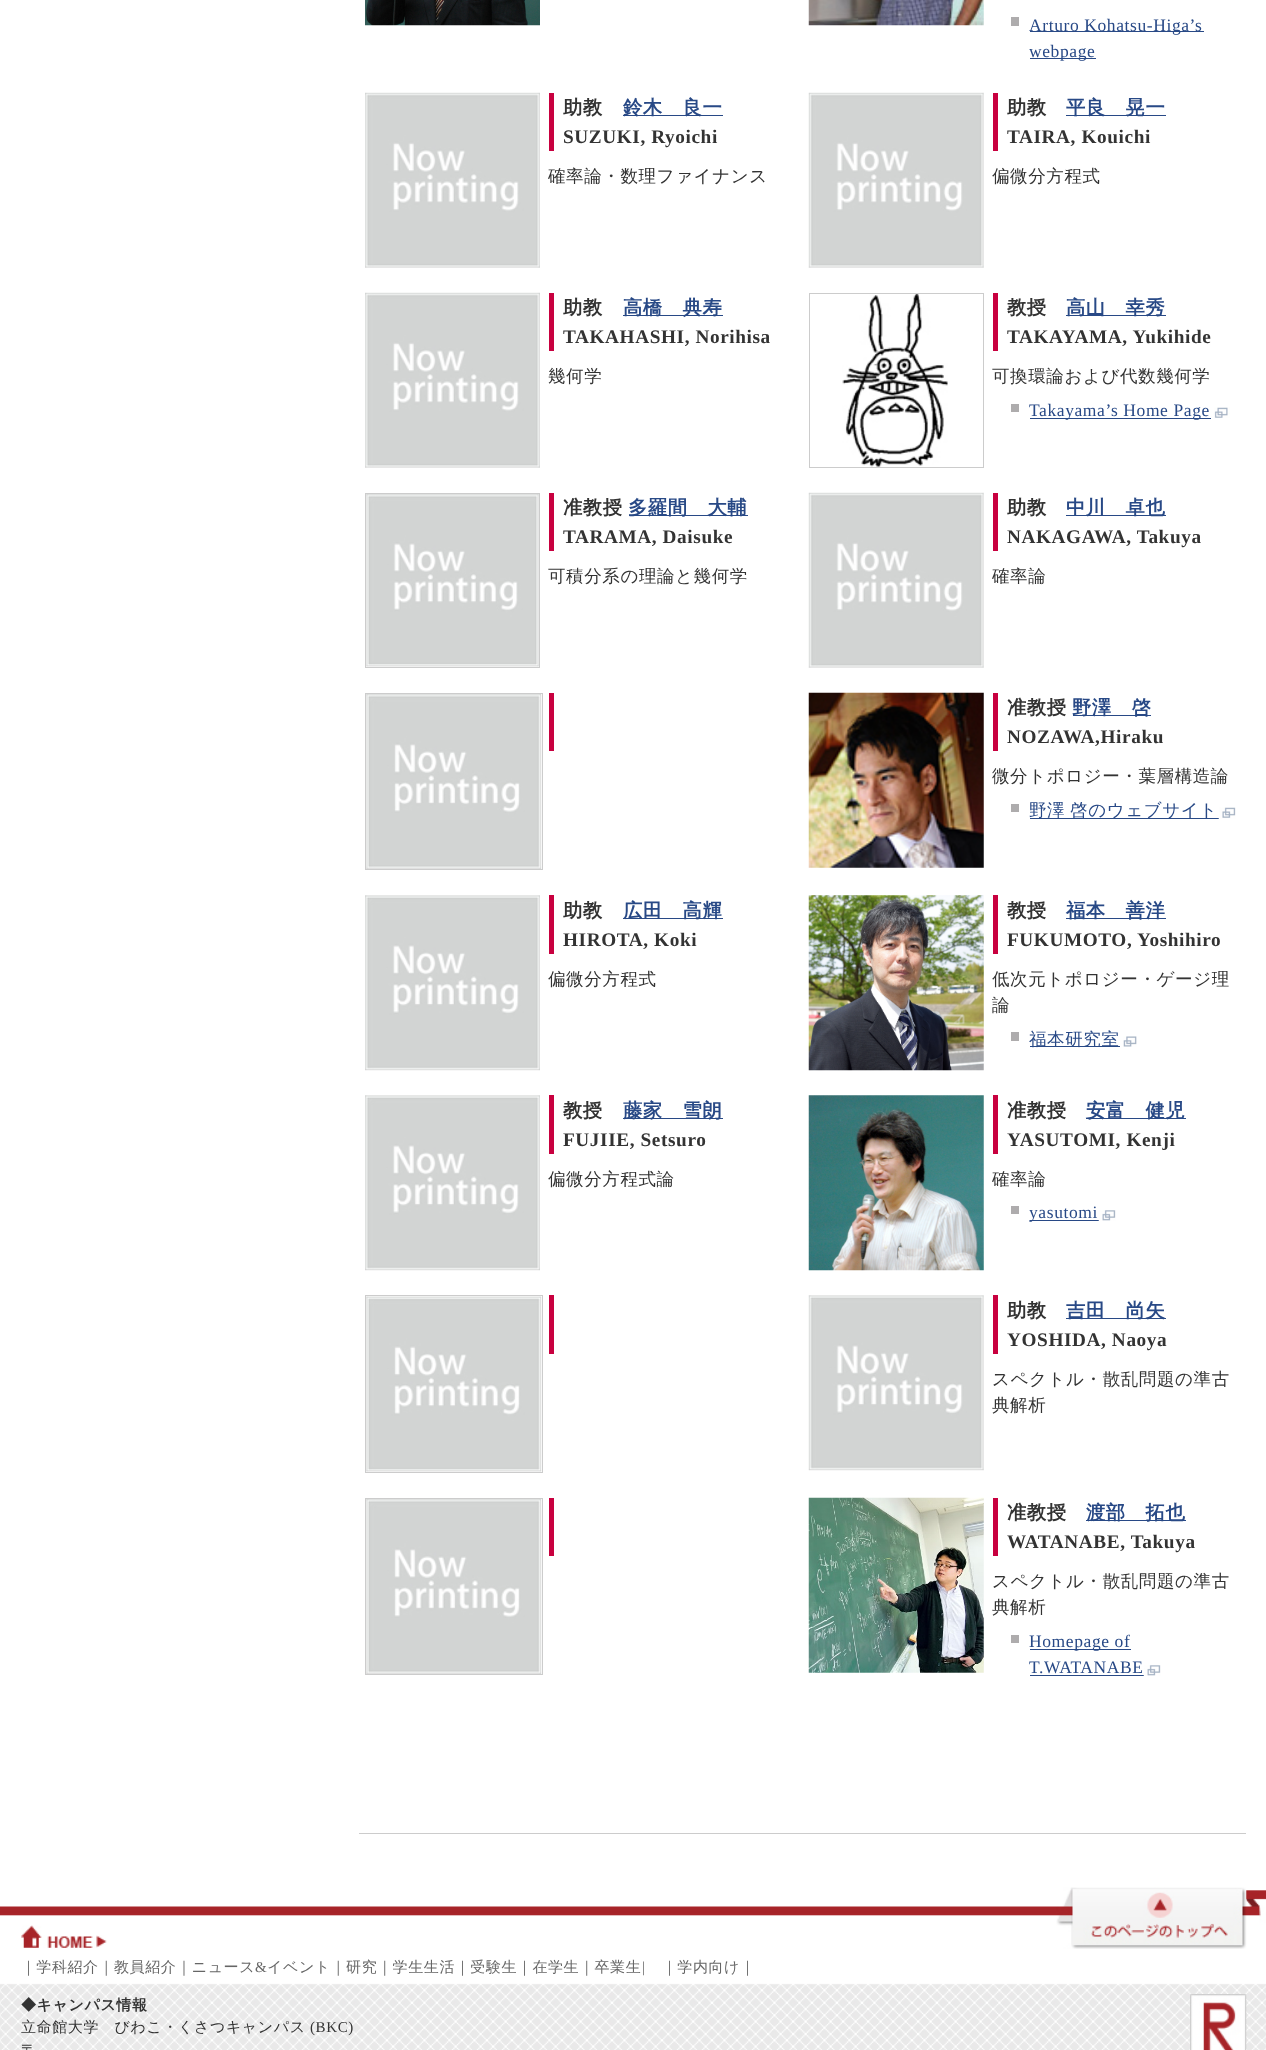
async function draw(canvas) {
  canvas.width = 1266
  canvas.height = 2050
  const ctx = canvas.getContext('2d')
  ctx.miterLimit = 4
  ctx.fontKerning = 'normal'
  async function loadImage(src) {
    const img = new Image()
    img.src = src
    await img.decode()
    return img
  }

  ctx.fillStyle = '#fff'
  ctx.fillRect(0, 0, 1266, 2050)
  ctx.fillStyle = '#ccc'
  ctx.fillRect(359, 1833, 887, 1)
  ctx.drawImage(await loadImage('image0.png'), 365, 0, 175, 26)
  ctx.drawImage(await loadImage('image1.png'), 808, 0, 176, 26)
  ctx.fillStyle = '#aeacad'
  ctx.fillRect(1011, 17, 8, 9)
  ctx.fillStyle = '#284986'
  ctx.fillRect(1030, 31, 174, 1)
  ctx.letterSpacing = '0.6px'
  ctx.font = '17.5px Liberation Serif'
  ctx.fillText('Arturo Kohatsu-Higa’s', 1029, 31)
  ctx.fillRect(1030, 58, 66, 1)
  ctx.fillText('webpage', 1029, 57)
  ctx.drawImage(await loadImage('image2.png'), 365, 92, 175, 176)
  ctx.fillStyle = '#c8003f'
  ctx.fillRect(549, 93, 5, 58)
  ctx.font = 'bold 19.25px WenQuanYi Zen Hei'
  ctx.fillStyle = '#333'
  ctx.fillText('助教', 563, 114)
  ctx.fillStyle = '#284986'
  ctx.fillRect(623, 115, 100, 1)
  ctx.fillText('鈴木　良一', 623, 114)
  ctx.font = 'bold 19.25px Liberation Serif'
  ctx.fillStyle = '#333'
  ctx.fillText('SUZUKI, Ryoichi', 563, 143)
  ctx.font = '500 17.5px WenQuanYi Zen Hei'
  ctx.fillText('確率論・数理ファイナンス', 548, 182)
  ctx.drawImage(await loadImage('image3.png'), 808, 92, 176, 176)
  ctx.fillStyle = '#c8003f'
  ctx.fillRect(993, 93, 5, 58)
  ctx.font = 'bold 19.25px WenQuanYi Zen Hei'
  ctx.fillStyle = '#333'
  ctx.fillText('助教', 1007, 114)
  ctx.fillStyle = '#284986'
  ctx.fillRect(1066, 115, 100, 1)
  ctx.fillText('平良　晃一', 1066, 114)
  ctx.font = 'bold 19.25px Liberation Serif'
  ctx.fillStyle = '#333'
  ctx.fillText('TAIRA, Kouichi', 1007, 143)
  ctx.font = '500 17.5px WenQuanYi Zen Hei'
  ctx.fillText('偏微分方程式', 992, 182)
  ctx.drawImage(await loadImage('image2.png'), 365, 292, 175, 176)
  ctx.fillStyle = '#c8003f'
  ctx.fillRect(549, 293, 5, 58)
  ctx.font = 'bold 19.25px WenQuanYi Zen Hei'
  ctx.fillStyle = '#333'
  ctx.fillText('助教', 563, 314)
  ctx.fillStyle = '#284986'
  ctx.fillRect(623, 315, 100, 1)
  ctx.fillText('高橋　典寿', 623, 314)
  ctx.font = 'bold 19.25px Liberation Serif'
  ctx.fillStyle = '#333'
  ctx.fillText('TAKAHASHI, Norihisa', 563, 343)
  ctx.font = '500 17.5px WenQuanYi Zen Hei'
  ctx.fillText('幾何学', 548, 382)
  ctx.strokeStyle = '#ccc'
  ctx.strokeRect(809.5, 293.5, 174, 174)
  ctx.drawImage(await loadImage('image4.png'), 842, 294, 106, 173)
  ctx.fillStyle = '#c8003f'
  ctx.fillRect(993, 293, 5, 58)
  ctx.font = 'bold 19.25px WenQuanYi Zen Hei'
  ctx.fillStyle = '#333'
  ctx.fillText('教授', 1007, 314)
  ctx.fillStyle = '#284986'
  ctx.fillRect(1066, 315, 100, 1)
  ctx.fillText('高山　幸秀', 1066, 314)
  ctx.font = 'bold 19.25px Liberation Serif'
  ctx.fillStyle = '#333'
  ctx.fillText('TAKAYAMA, Yukihide', 1007, 343)
  ctx.font = '500 17.5px WenQuanYi Zen Hei'
  ctx.fillText('可換環論および代数幾何学', 992, 382)
  ctx.fillStyle = '#aeacad'
  ctx.fillRect(1011, 404, 8, 8)
  ctx.fillStyle = '#284986'
  ctx.fillRect(1030, 418, 181, 1)
  ctx.font = '17.5px Liberation Serif'
  ctx.fillText('Takayama’s Home Page', 1029, 416)
  ctx.drawImage(await loadImage('image5.png'), 1214, 407, 16, 11)
  ctx.strokeRect(365.5, 493.5, 174, 174)
  ctx.drawImage(await loadImage('image6.png'), 366, 494, 173, 173)
  ctx.fillStyle = '#c8003f'
  ctx.fillRect(549, 493, 5, 58)
  ctx.font = 'bold 19.25px WenQuanYi Zen Hei'
  ctx.fillStyle = '#333'
  ctx.fillText('准教授', 563, 514)
  ctx.fillStyle = '#284986'
  ctx.fillRect(629, 515, 119, 1)
  ctx.fillText('多羅間　大輔', 628, 514)
  ctx.font = 'bold 19.25px Liberation Serif'
  ctx.fillStyle = '#333'
  ctx.fillText('TARAMA, Daisuke', 563, 543)
  ctx.font = '500 17.5px WenQuanYi Zen Hei'
  ctx.fillText('可積分系の理論と幾何学', 548, 582)
  ctx.drawImage(await loadImage('image3.png'), 808, 492, 176, 176)
  ctx.fillStyle = '#c8003f'
  ctx.fillRect(993, 493, 5, 58)
  ctx.font = 'bold 19.25px WenQuanYi Zen Hei'
  ctx.fillStyle = '#333'
  ctx.fillText('助教', 1007, 514)
  ctx.fillStyle = '#284986'
  ctx.fillRect(1066, 515, 100, 1)
  ctx.fillText('中川　卓也', 1066, 514)
  ctx.font = 'bold 19.25px Liberation Serif'
  ctx.fillStyle = '#333'
  ctx.fillText('NAKAGAWA, Takuya', 1007, 543)
  ctx.font = '500 17.5px WenQuanYi Zen Hei'
  ctx.fillText('確率論', 992, 582)
  ctx.strokeRect(365.5, 693.5, 177, 176)
  ctx.drawImage(await loadImage('image7.png'), 366, 694, 176, 175)
  ctx.fillStyle = '#c8003f'
  ctx.fillRect(549, 693, 5, 58)
  ctx.drawImage(await loadImage('image8.png'), 808, 692, 176, 176)
  ctx.fillRect(993, 693, 5, 58)
  ctx.font = 'bold 19.25px WenQuanYi Zen Hei'
  ctx.fillStyle = '#333'
  ctx.fillText('准教授', 1007, 714)
  ctx.fillStyle = '#284986'
  ctx.fillRect(1073, 715, 78, 1)
  ctx.fillText('野澤　啓', 1072, 714)
  ctx.font = 'bold 19.25px Liberation Serif'
  ctx.fillStyle = '#333'
  ctx.fillText('NOZAWA,Hiraku', 1007, 743)
  ctx.font = '500 17.5px WenQuanYi Zen Hei'
  ctx.fillText('微分トポロジー・葉層構造論', 992, 782)
  ctx.fillStyle = '#aeacad'
  ctx.fillRect(1011, 804, 8, 8)
  ctx.fillStyle = '#284986'
  ctx.fillRect(1030, 818, 189, 1)
  ctx.wordSpacing = '-1px'
  ctx.fillText('野澤 啓のウェブサイト', 1029, 816)
  ctx.drawImage(await loadImage('image9.png'), 1218, 807, 18, 12)
  ctx.drawImage(await loadImage('image10.png'), 365, 895, 175, 176)
  ctx.fillStyle = '#c8003f'
  ctx.fillRect(549, 895, 5, 59)
  ctx.wordSpacing = '0px'
  ctx.font = 'bold 19.25px WenQuanYi Zen Hei'
  ctx.fillStyle = '#333'
  ctx.fillText('助教', 563, 917)
  ctx.fillStyle = '#284986'
  ctx.fillRect(623, 918, 100, 1)
  ctx.fillText('広田　高輝', 623, 917)
  ctx.font = 'bold 19.25px Liberation Serif'
  ctx.fillStyle = '#333'
  ctx.fillText('HIROTA, Koki', 563, 946)
  ctx.font = '500 17.5px WenQuanYi Zen Hei'
  ctx.fillText('偏微分方程式', 548, 985)
  ctx.drawImage(await loadImage('image11.png'), 808, 895, 176, 176)
  ctx.fillStyle = '#c8003f'
  ctx.fillRect(993, 895, 5, 59)
  ctx.font = 'bold 19.25px WenQuanYi Zen Hei'
  ctx.fillStyle = '#333'
  ctx.fillText('教授', 1007, 917)
  ctx.fillStyle = '#284986'
  ctx.fillRect(1066, 918, 100, 1)
  ctx.fillText('福本　善洋', 1066, 917)
  ctx.font = 'bold 19.25px Liberation Serif'
  ctx.fillStyle = '#333'
  ctx.fillText('FUKUMOTO, Yoshihiro', 1007, 946)
  ctx.font = '500 17.5px WenQuanYi Zen Hei'
  ctx.fillText('低次元トポロジー・ゲージ理', 992, 985)
  ctx.fillText('論', 992, 1011)
  ctx.fillStyle = '#aeacad'
  ctx.fillRect(1011, 1032, 8, 9)
  ctx.fillStyle = '#284986'
  ctx.fillRect(1030, 1046, 90, 1)
  ctx.fillText('福本研究室', 1029, 1045)
  ctx.drawImage(await loadImage('image12.png'), 1123, 1036, 14, 11)
  ctx.drawImage(await loadImage('image13.png'), 365, 1095, 175, 176)
  ctx.fillStyle = '#c8003f'
  ctx.fillRect(549, 1095, 5, 59)
  ctx.font = 'bold 19.25px WenQuanYi Zen Hei'
  ctx.fillStyle = '#333'
  ctx.fillText('教授', 563, 1117)
  ctx.fillStyle = '#284986'
  ctx.fillRect(623, 1118, 100, 1)
  ctx.fillText('藤家　雪朗', 623, 1117)
  ctx.font = 'bold 19.25px Liberation Serif'
  ctx.fillStyle = '#333'
  ctx.fillText('FUJIIE, Setsuro', 563, 1146)
  ctx.font = '500 17.5px WenQuanYi Zen Hei'
  ctx.fillText('偏微分方程式論', 548, 1185)
  ctx.drawImage(await loadImage('image14.png'), 808, 1095, 176, 176)
  ctx.fillStyle = '#c8003f'
  ctx.fillRect(993, 1095, 5, 59)
  ctx.font = 'bold 19.25px WenQuanYi Zen Hei'
  ctx.fillStyle = '#333'
  ctx.fillText('准教授', 1007, 1117)
  ctx.fillStyle = '#284986'
  ctx.fillRect(1086, 1118, 100, 1)
  ctx.fillText('安富　健児', 1086, 1117)
  ctx.font = 'bold 19.25px Liberation Serif'
  ctx.fillStyle = '#333'
  ctx.fillText('YASUTOMI, Kenji', 1007, 1146)
  ctx.font = '500 17.5px WenQuanYi Zen Hei'
  ctx.fillText('確率論', 992, 1185)
  ctx.fillStyle = '#aeacad'
  ctx.fillRect(1011, 1206, 8, 8)
  ctx.fillStyle = '#284986'
  ctx.fillRect(1030, 1220, 69, 1)
  ctx.font = '17.5px Liberation Serif'
  ctx.fillText('yasutomi', 1029, 1218)
  ctx.drawImage(await loadImage('image15.png'), 1098, 1210, 18, 11)
  ctx.strokeRect(365.5, 1295.5, 177, 177)
  ctx.drawImage(await loadImage('image16.png'), 366, 1296, 176, 176)
  ctx.fillStyle = '#c8003f'
  ctx.fillRect(549, 1295, 5, 59)
  ctx.drawImage(await loadImage('image17.png'), 808, 1295, 176, 176)
  ctx.fillRect(993, 1295, 5, 59)
  ctx.font = 'bold 19.25px WenQuanYi Zen Hei'
  ctx.fillStyle = '#333'
  ctx.fillText('助教', 1007, 1317)
  ctx.fillStyle = '#284986'
  ctx.fillRect(1066, 1318, 100, 1)
  ctx.fillText('吉田　尚矢', 1066, 1317)
  ctx.font = 'bold 19.25px Liberation Serif'
  ctx.fillStyle = '#333'
  ctx.fillText('YOSHIDA, Naoya', 1007, 1346)
  ctx.font = '500 17.5px WenQuanYi Zen Hei'
  ctx.fillText('スペクトル・散乱問題の準古', 992, 1385)
  ctx.fillText('典解析', 992, 1411)
  ctx.strokeRect(365.5, 1498.5, 177, 176)
  ctx.drawImage(await loadImage('image18.png'), 366, 1499, 176, 175)
  ctx.fillStyle = '#c8003f'
  ctx.fillRect(549, 1498, 5, 58)
  ctx.drawImage(await loadImage('image19.png'), 808, 1497, 176, 176)
  ctx.fillRect(993, 1498, 5, 58)
  ctx.font = 'bold 19.25px WenQuanYi Zen Hei'
  ctx.fillStyle = '#333'
  ctx.fillText('准教授', 1007, 1519)
  ctx.fillStyle = '#284986'
  ctx.fillRect(1086, 1520, 100, 1)
  ctx.fillText('渡部　拓也', 1086, 1519)
  ctx.font = 'bold 19.25px Liberation Serif'
  ctx.fillStyle = '#333'
  ctx.fillText('WATANABE, Takuya', 1007, 1548)
  ctx.font = '500 17.5px WenQuanYi Zen Hei'
  ctx.fillText('スペクトル・散乱問題の準古', 992, 1587)
  ctx.fillText('典解析', 992, 1613)
  ctx.fillStyle = '#aeacad'
  ctx.fillRect(1011, 1635, 8, 8)
  ctx.fillStyle = '#284986'
  ctx.fillRect(1030, 1649, 101, 1)
  ctx.font = '17.5px Liberation Serif'
  ctx.fillText('Homepage of', 1029, 1647)
  ctx.fillText('T.WATANABE', 1029, 1673)
  ctx.fillRect(1030, 1675, 114, 1)
  ctx.drawImage(await loadImage('image15.png'), 1143, 1665, 18, 11)
  ctx.drawImage(await loadImage('image20.png'), 0, 1890, 1266, 160)
  ctx.drawImage(await loadImage('image21.png'), 1056, 1887, 191, 62)
  ctx.drawImage(await loadImage('image22.png'), 21, 1925, 86, 23)
  ctx.font = '500 15px WenQuanYi Zen Hei'
  ctx.fillStyle = '#666'
  ctx.fillText('｜学科紹介｜教員紹介｜ニュース', 21, 1972)
  ctx.font = '15px Liberation Serif'
  ctx.fillText('&', 255, 1972)
  ctx.font = '500 15px WenQuanYi Zen Hei'
  ctx.fillText('イベント｜研究｜学生生活｜受験生｜在学生｜卒業生', 267, 1972)
  ctx.font = '15px Liberation Serif'
  ctx.fillText('|', 642, 1972)
  ctx.font = '500 15px WenQuanYi Zen Hei'
  ctx.fillText('｜学内向け｜', 662, 1972)
  ctx.font = 'bold 15px WenQuanYi Zen Hei'
  ctx.fillStyle = '#333'
  ctx.fillText('◆キャンパス情報', 21, 2010)
  ctx.font = '500 15px WenQuanYi Zen Hei'
  ctx.fillText('立命館大学　びわこ・くさつキャンパス', 21, 2032)
  ctx.font = '15px Liberation Serif'
  ctx.fillText('(BKC)', 310, 2032)
  ctx.font = '500 15px WenQuanYi Zen Hei'
  ctx.fillText('〒', 21, 2055)
  ctx.drawImage(await loadImage('image23.png'), 1190, 1994, 57, 56)
}

draw(document.querySelector('canvas'))
